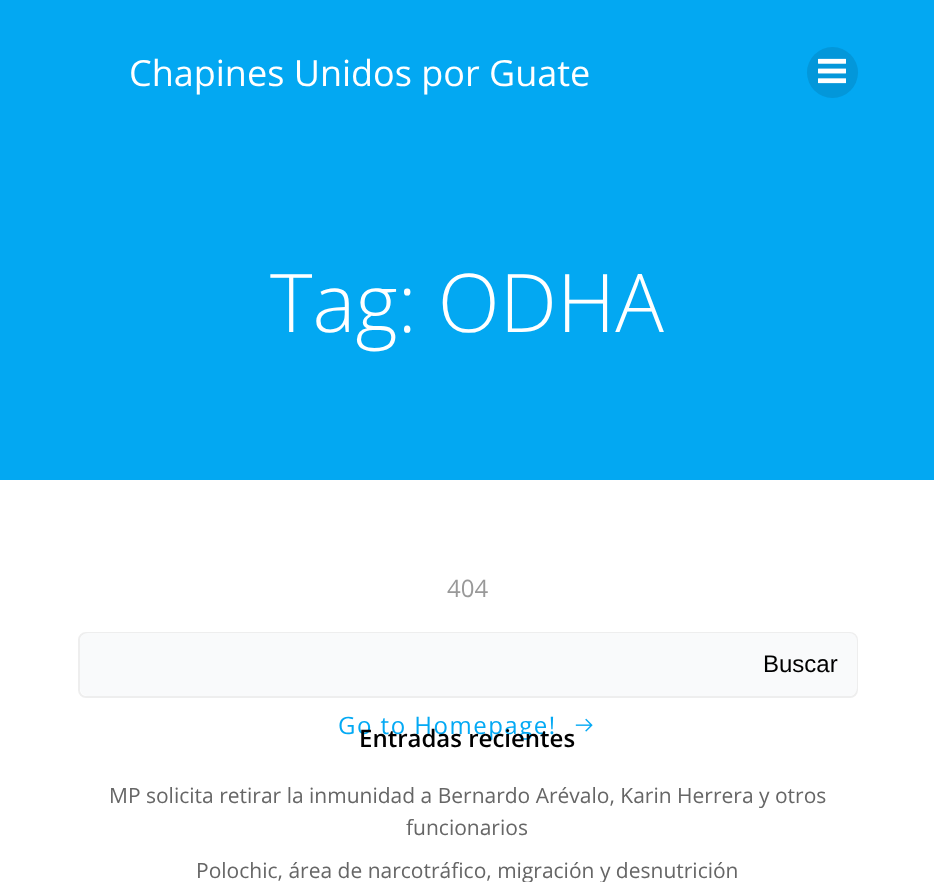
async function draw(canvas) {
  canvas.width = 934
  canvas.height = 882
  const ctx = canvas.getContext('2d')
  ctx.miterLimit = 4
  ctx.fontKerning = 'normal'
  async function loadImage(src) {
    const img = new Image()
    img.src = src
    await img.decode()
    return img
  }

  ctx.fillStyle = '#fff'
  ctx.fillRect(0, 0, 934, 882)
  ctx.fillStyle = '#03a8f2'
  ctx.fillRect(0, 0, 934, 480)
  ctx.font = '36px Open Sans'
  ctx.fillStyle = '#fff'
  ctx.fillText('Chapines Unidos por Guate', 129, 86)
  ctx.fillStyle = '#0397da'
  ctx.beginPath()
  ctx.arc(832.5, 72.5, 25.5, 0, 2 * Math.PI)
  ctx.fill()
  ctx.drawImage(await loadImage('image0.png'), 818, 58, 28, 26)
  ctx.font = '300 81px Open Sans'
  ctx.fillStyle = '#fff'
  ctx.fillText('Tag: ODHA', 270, 332)
  ctx.font = '24px Open Sans'
  ctx.fillStyle = '#999'
  ctx.fillText('404', 447, 597)
  ctx.letterSpacing = '1.5px'
  ctx.fillStyle = '#03a9f4'
  ctx.fillText('Go to Homepage!', 338, 734)
  ctx.drawImage(await loadImage('image1.png'), 575, 718, 18, 14)
  ctx.beginPath()
  ctx.roundRect(79, 633, 778, 64, 7)
  ctx.strokeStyle = '#eee'
  ctx.lineWidth = 2
  ctx.stroke()
  ctx.fillStyle = '#f9fafb'
  ctx.beginPath()
  ctx.roundRect(80, 633, 666, 63, [8, 0, 0, 8])
  ctx.fill()
  ctx.beginPath()
  ctx.roundRect(746, 633, 111, 63, [0, 8, 8, 0])
  ctx.fill()
  ctx.letterSpacing = '0px'
  ctx.font = '24px Liberation Sans'
  ctx.fillStyle = '#000'
  ctx.fillText('Buscar', 763, 672)
  ctx.font = '600 24px Open Sans'
  ctx.fillText('Entradas recientes', 359, 747)
  ctx.font = '21px Open Sans'
  ctx.fillStyle = '#666'
  ctx.fillText('MP solicita retirar la inmunidad a Bernardo Arévalo, Karin Herrera y otros', 109, 803)
  ctx.fillText('funcionarios', 406, 835)
  ctx.fillText('Polochic, área de narcotráfico, migración y desnutrición', 196, 878)
}

draw(document.querySelector('canvas'))
